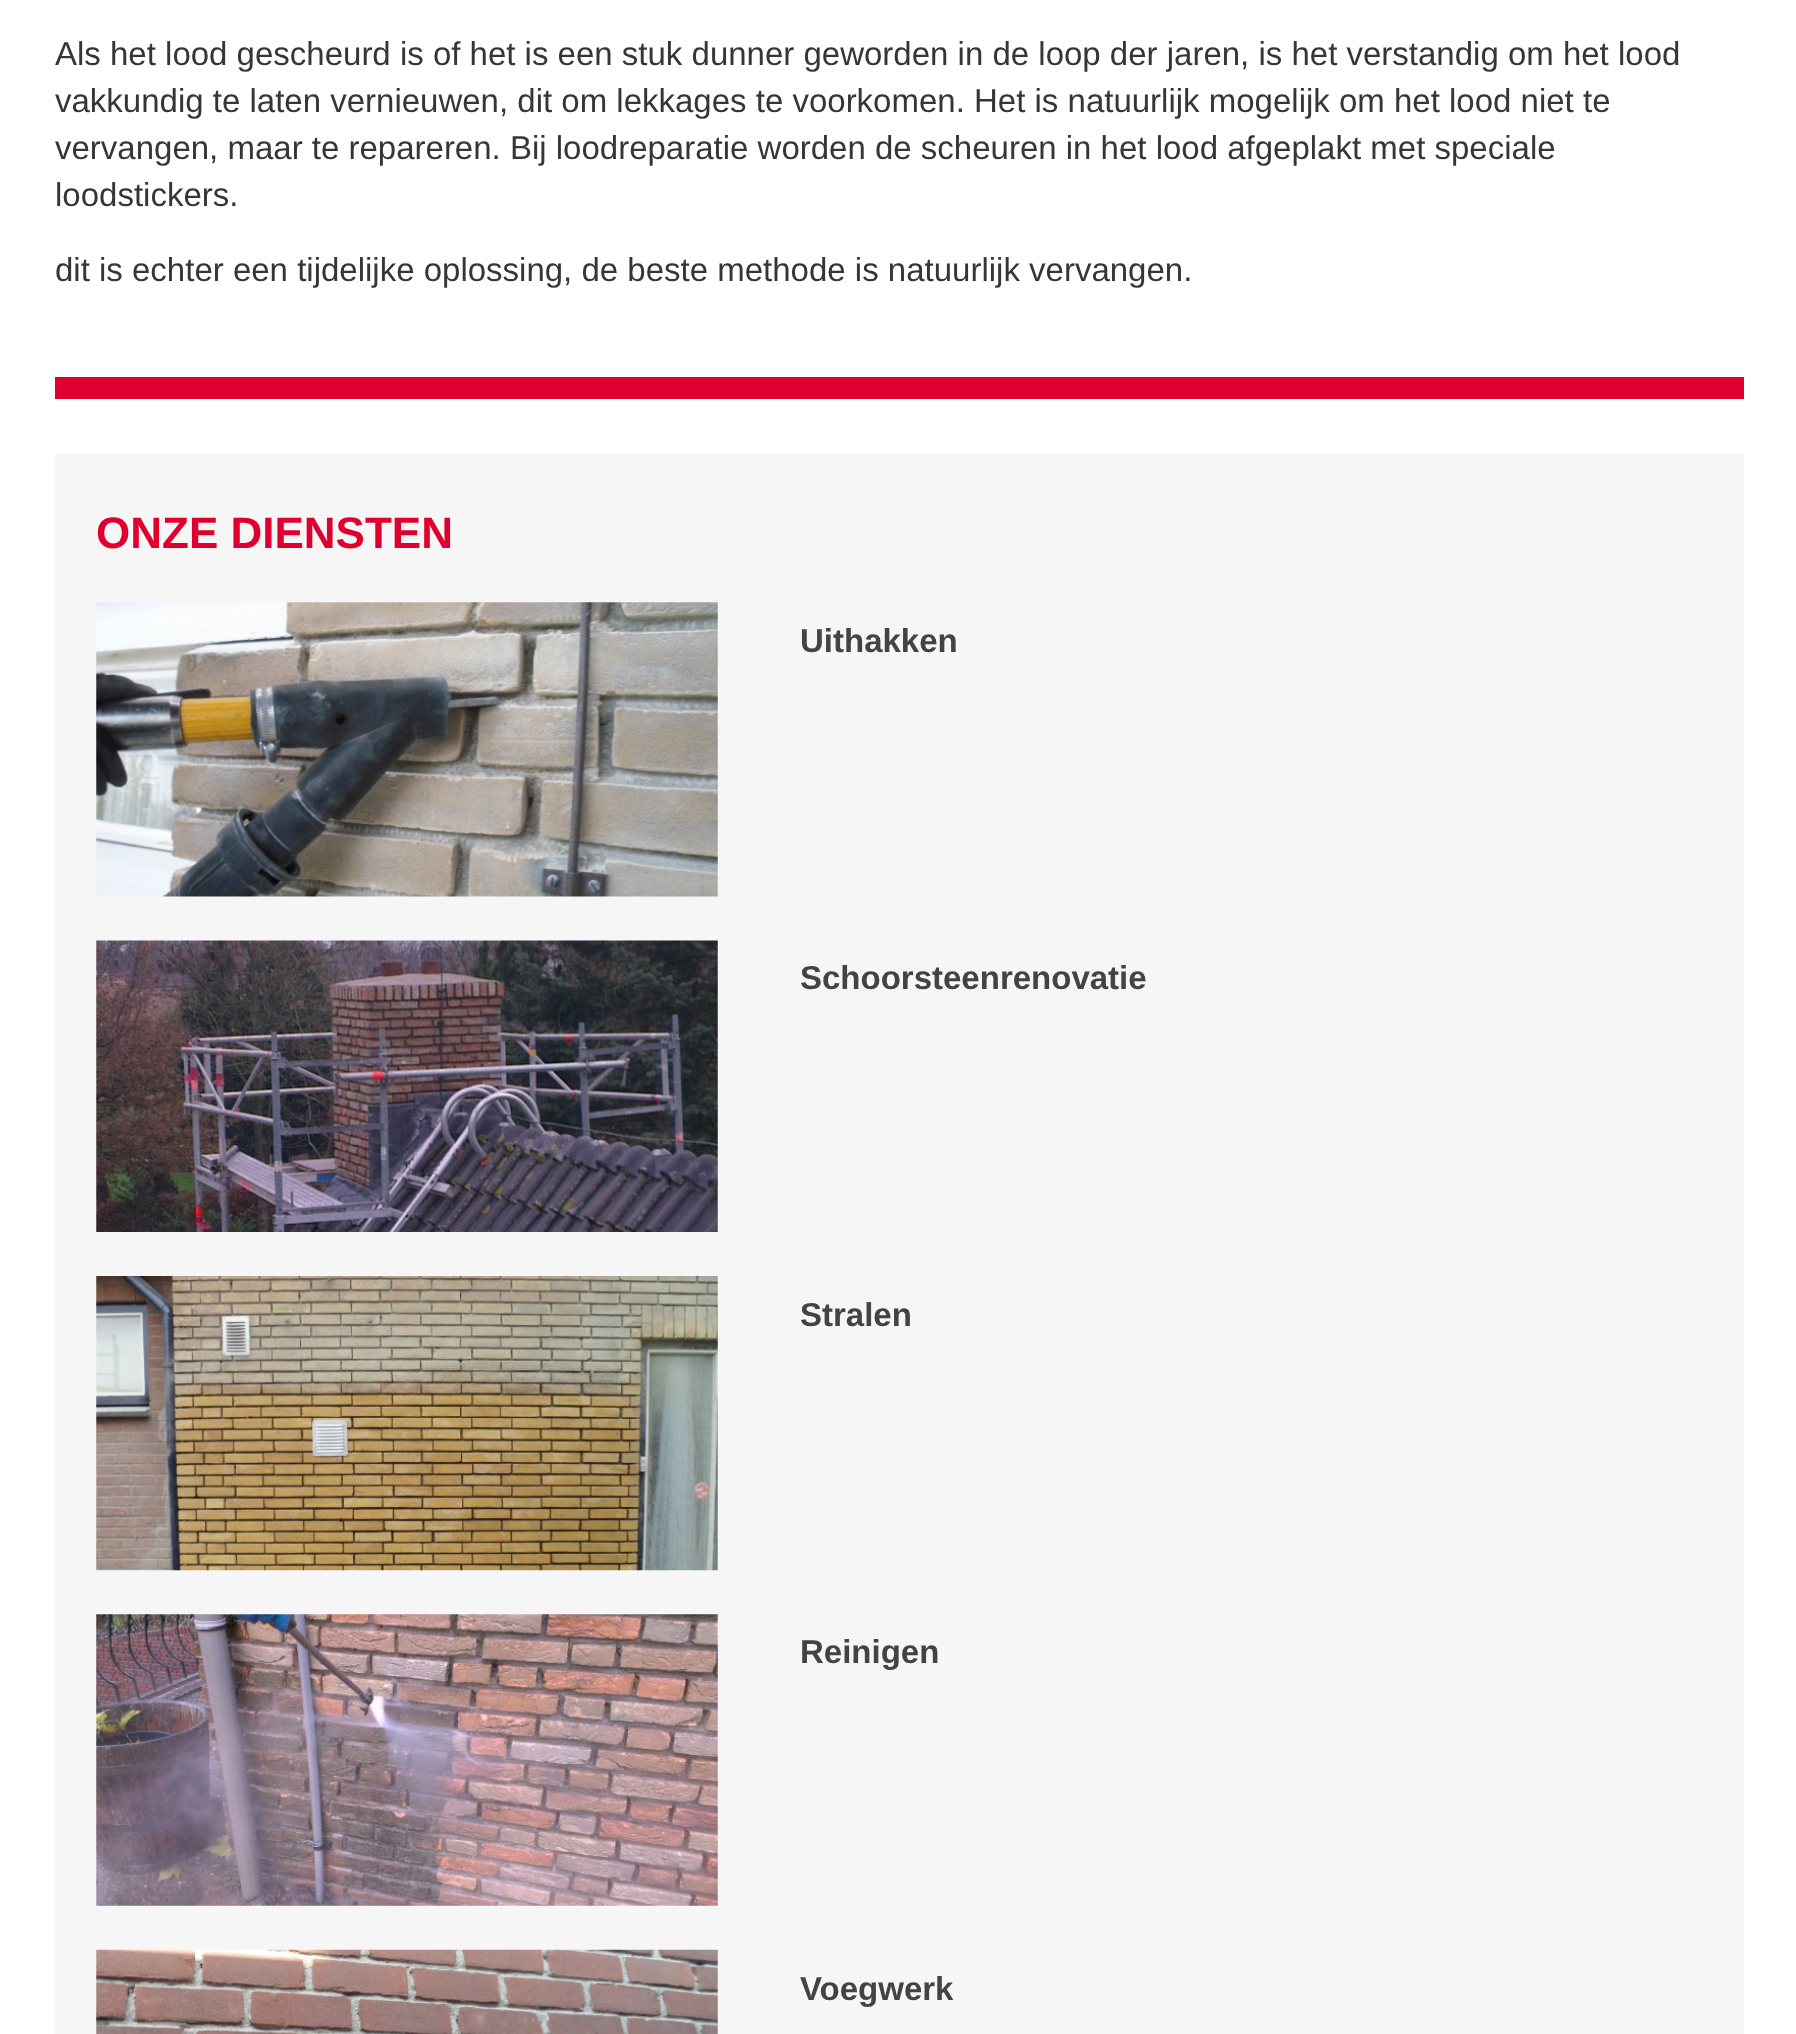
async function draw(canvas) {
  canvas.width = 1796
  canvas.height = 2034
  const ctx = canvas.getContext('2d')
  ctx.miterLimit = 4
  ctx.fontKerning = 'normal'
  async function loadImage(src) {
    const img = new Image()
    img.src = src
    await img.decode()
    return img
  }

  ctx.fillStyle = '#fff'
  ctx.fillRect(0, 0, 1796, 2034)
  ctx.fillStyle = '#df0030'
  ctx.fillRect(55, 377, 1689, 22)
  ctx.font = '33px Liberation Sans'
  ctx.fillStyle = '#363636'
  ctx.fillText('Als het lood gescheurd is of het is een stuk dunner geworden in de loop der jaren, is het verstandig om het lood', 55, 65)
  ctx.fillText('vakkundig te laten vernieuwen, dit om lekkages te voorkomen. Het is natuurlijk mogelijk om het lood niet te', 55, 112)
  ctx.fillText('vervangen, maar te repareren. Bij loodreparatie worden de scheuren in het lood afgeplakt met speciale', 55, 159)
  ctx.fillText('loodstickers.', 55, 206)
  ctx.fillText('dit is echter een tijdelijke oplossing, de beste methode is natuurlijk vervangen.', 55, 281)
  ctx.fillStyle = '#f6f6f6'
  ctx.fillRect(55, 454, 1689, 1580)
  ctx.font = 'bold 44px Liberation Sans'
  ctx.fillStyle = '#df0030'
  ctx.fillText('ONZE DIENSTEN', 96, 548)
  ctx.drawImage(await loadImage('image0.png'), 96, 602, 622, 295)
  ctx.font = 'bold 33px Liberation Sans'
  ctx.fillStyle = '#434343'
  ctx.fillText('Uithakken', 800, 652)
  ctx.drawImage(await loadImage('image1.png'), 96, 940, 622, 292)
  ctx.fillText('Schoorsteenrenovatie', 800, 989)
  ctx.drawImage(await loadImage('image2.png'), 96, 1276, 622, 295)
  ctx.fillText('Stralen', 800, 1326)
  ctx.drawImage(await loadImage('image3.png'), 96, 1614, 622, 292)
  ctx.fillText('Reinigen', 800, 1663)
  ctx.drawImage(await loadImage('image4.png'), 96, 1949, 622, 85)
  ctx.fillText('Voegwerk', 800, 2000)
}

draw(document.querySelector('canvas'))
